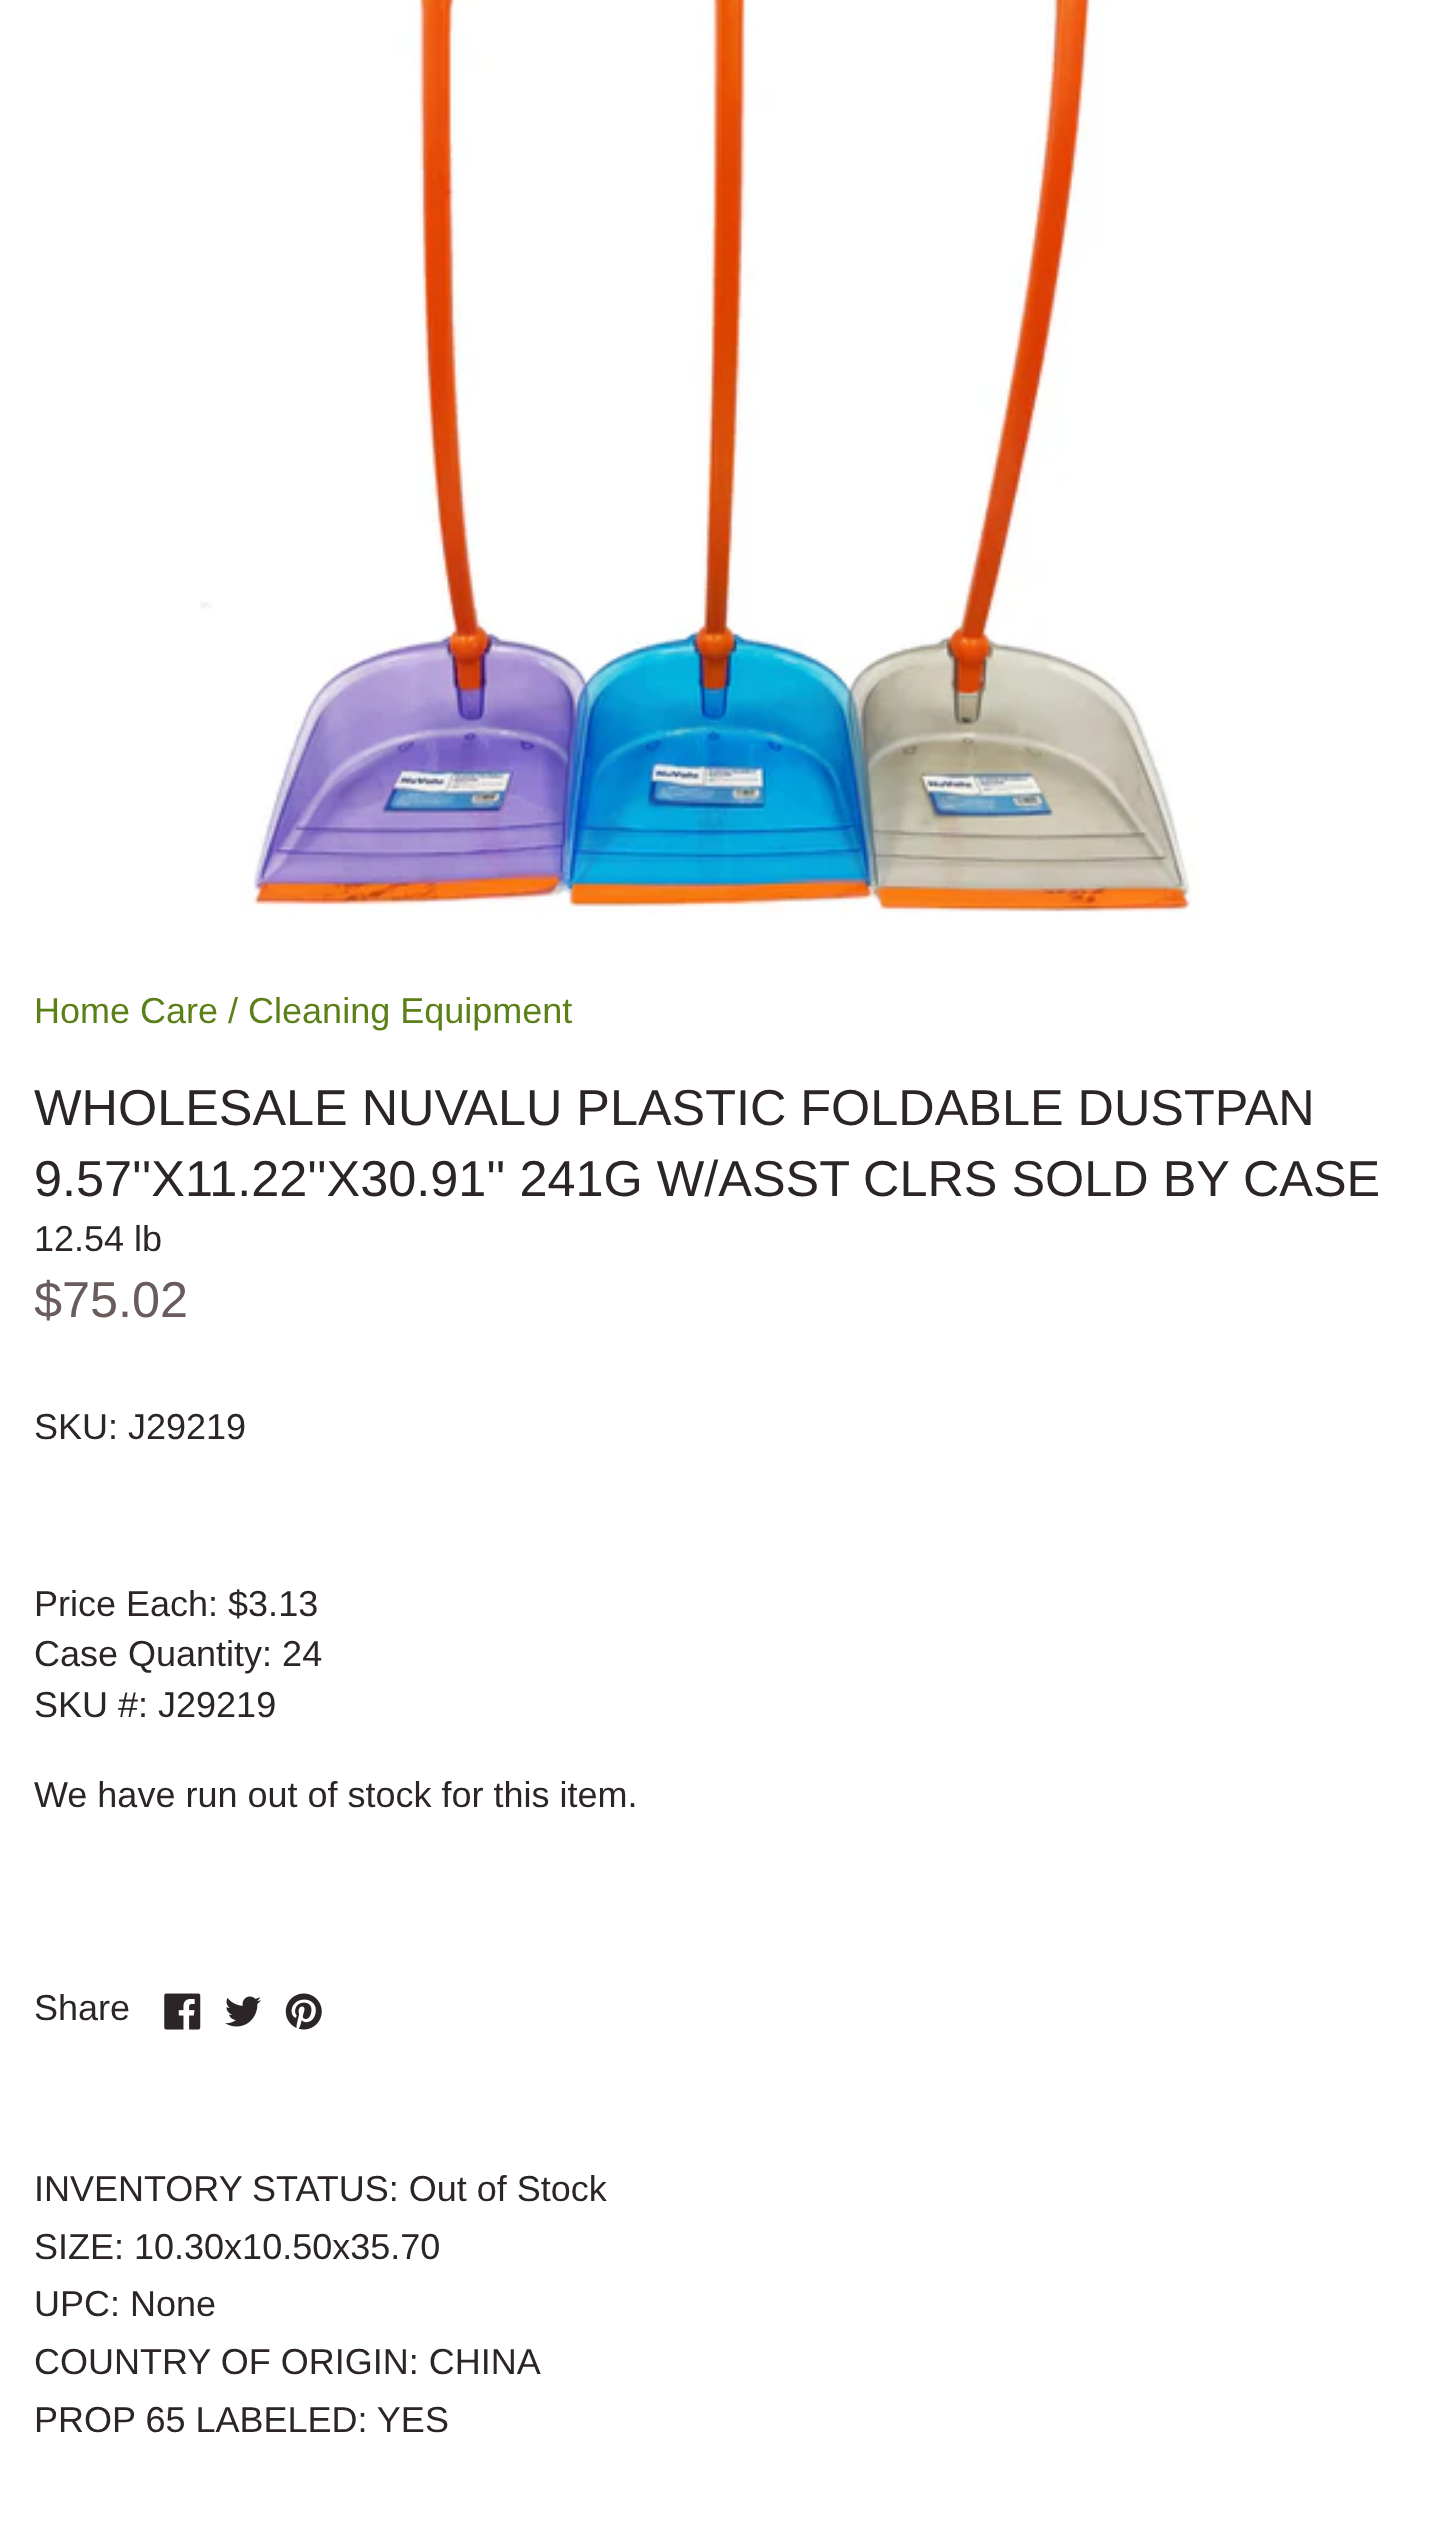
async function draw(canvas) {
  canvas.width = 1456
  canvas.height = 2533
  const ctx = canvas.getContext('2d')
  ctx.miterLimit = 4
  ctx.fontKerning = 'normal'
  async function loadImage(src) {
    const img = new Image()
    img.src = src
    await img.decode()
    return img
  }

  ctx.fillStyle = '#fff'
  ctx.fillRect(0, 0, 1456, 2533)
  ctx.drawImage(await loadImage('image0.png'), 200, 0, 1001, 914)
  ctx.font = '36px Liberation Sans'
  ctx.fillStyle = '#5c8018'
  ctx.fillText('Home Care / Cleaning Equipment', 34, 1023)
  ctx.font = '50.4px Liberation Sans'
  ctx.fillStyle = '#2c2528'
  ctx.fillText('WHOLESALE NUVALU PLASTIC FOLDABLE DUSTPAN', 34, 1125)
  ctx.fillText('9.57\'\'X11.22\'\'X30.91\'\' 241G W/ASST CLRS SOLD BY CASE', 34, 1196)
  ctx.font = '36px Liberation Sans'
  ctx.fillText('12.54 lb', 34, 1251)
  ctx.font = '50.4px Liberation Sans'
  ctx.fillStyle = '#6a5b5c'
  ctx.fillText('$75.02', 34, 1317)
  ctx.font = '36px Liberation Sans'
  ctx.fillStyle = '#2c2528'
  ctx.fillText('SKU: J29219', 34, 1439)
  ctx.fillText('Price Each: $3.13', 34, 1616)
  ctx.fillText('Case Quantity: 24', 34, 1666)
  ctx.fillText('SKU #: J29219', 34, 1717)
  ctx.fillText('We have run out of stock for this item.', 34, 1807)
  ctx.fillText('Share', 34, 2020)
  ctx.drawImage(await loadImage('image1.png'), 164, 1993, 37, 37)
  ctx.drawImage(await loadImage('image2.png'), 225, 1996, 36, 31)
  ctx.drawImage(await loadImage('image3.png'), 285, 1993, 37, 37)
  ctx.fillText('INVENTORY STATUS: Out of Stock', 34, 2201)
  ctx.fillText('SIZE: 10.30x10.50x35.70', 34, 2259)
  ctx.fillText('UPC: None', 34, 2316)
  ctx.fillText('COUNTRY OF ORIGIN: CHINA', 34, 2374)
  ctx.fillText('PROP 65 LABELED: YES', 34, 2432)
}

draw(document.querySelector('canvas'))
